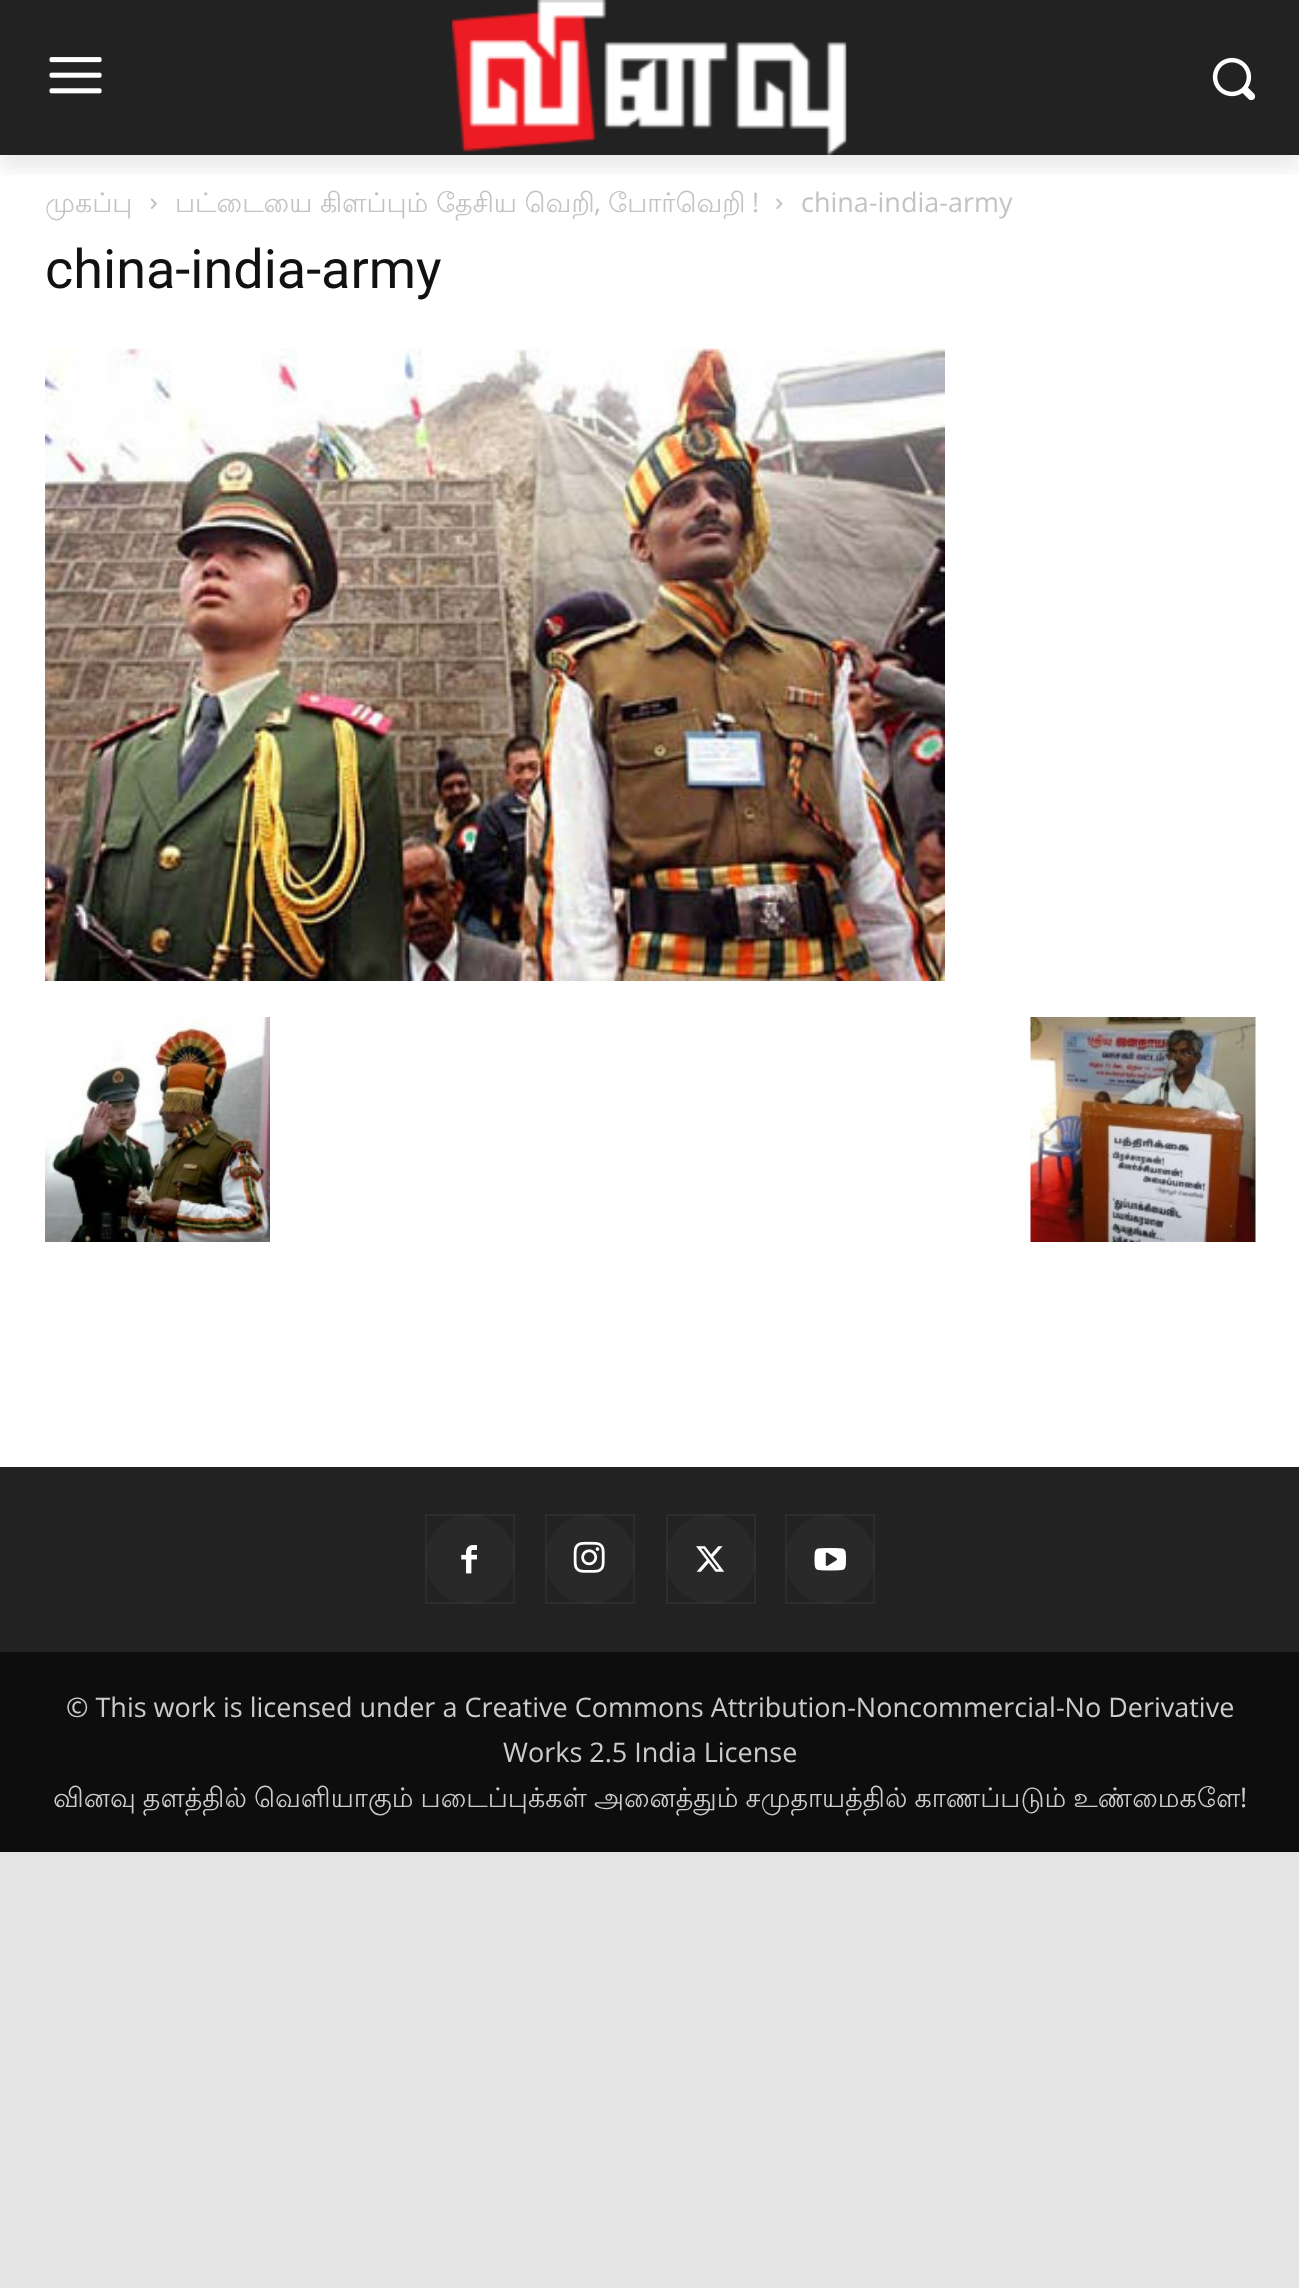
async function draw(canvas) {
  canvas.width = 1299
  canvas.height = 2288
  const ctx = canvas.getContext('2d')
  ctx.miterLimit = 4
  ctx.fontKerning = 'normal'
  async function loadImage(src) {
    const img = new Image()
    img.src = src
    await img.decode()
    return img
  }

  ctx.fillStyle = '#e4e4e4'
  ctx.fillRect(0, 0, 1299, 2288)
  ctx.fillStyle = '#222'
  ctx.fillRect(0, 0, 1299, 155)
  ctx.drawImage(await loadImage('image0.png'), 49, 57, 53, 37)
  ctx.drawImage(await loadImage('image1.png'), 452, 0, 395, 155)
  ctx.drawImage(await loadImage('image2.png'), 1212, 57, 44, 44)
  ctx.fillStyle = '#fff'
  ctx.fillRect(0, 155, 1299, 1312)
  ctx.save()
  ctx.beginPath()
  ctx.rect(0, 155, 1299, 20)
  ctx.clip()
  ctx.fillStyle = '#00000014'
  ctx.filter = 'blur(9px)'
  ctx.beginPath()
  ctx.rect(0, 14, 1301, 155)
  ctx.fill()
  ctx.filter = 'none'
  ctx.restore()
  ctx.font = '27px Lohit Tamil'
  ctx.fillStyle = '#c3c3c3'
  ctx.fillText('முகப்பு', 45, 212)
  ctx.drawImage(await loadImage('image3.png'), 150, 198, 7, 11)
  ctx.wordSpacing = '-0.5px'
  ctx.fillText('பட்டையை கிளப்பும் தேசிய வெறி', 175, 212)
  ctx.wordSpacing = '0px'
  ctx.fillText('போர்வெறி', 608, 212)
  ctx.font = '27px Open Sans'
  ctx.fillText('!', 752, 212)
  ctx.drawImage(await loadImage('image4.png'), 776, 198, 7, 11)
  ctx.fillText('china-india-army', 801, 212)
  ctx.fillText(',', 594, 212)
  ctx.font = '54px Roboto'
  ctx.fillStyle = '#111'
  ctx.fillText('china-india-army', 45, 288)
  ctx.drawImage(await loadImage('image5.png'), 45, 348, 900, 633)
  ctx.drawImage(await loadImage('image6.png'), 45, 1017, 225, 225)
  ctx.drawImage(await loadImage('image7.png'), 1030, 1017, 226, 225)
  ctx.fillStyle = '#222'
  ctx.fillRect(0, 1467, 1299, 185)
  ctx.fillStyle = '#292929'
  ctx.beginPath()
  ctx.arc(470, 1559, 45, 0, 2 * Math.PI)
  ctx.fill()
  ctx.drawImage(await loadImage('image8.png'), 461, 1545, 16, 29)
  ctx.strokeStyle = '#ffffff0d'
  ctx.lineWidth = 2
  ctx.strokeRect(426, 1515, 88, 88)
  ctx.beginPath()
  ctx.arc(590, 1559, 45, 0, 2 * Math.PI)
  ctx.fill()
  ctx.drawImage(await loadImage('image9.png'), 573, 1541, 32, 32)
  ctx.strokeRect(546, 1515, 88, 88)
  ctx.beginPath()
  ctx.arc(711, 1559, 45, 0, 2 * Math.PI)
  ctx.fill()
  ctx.drawImage(await loadImage('image10.png'), 696, 1546, 29, 26)
  ctx.strokeRect(667, 1515, 88, 88)
  ctx.beginPath()
  ctx.arc(830, 1559, 45, 0, 2 * Math.PI)
  ctx.fill()
  ctx.drawImage(await loadImage('image11.png'), 814, 1548, 32, 23)
  ctx.strokeRect(786, 1515, 88, 88)
  ctx.fillStyle = '#0d0d0d'
  ctx.fillRect(0, 1652, 1299, 200)
  ctx.font = '27px Open Sans'
  ctx.fillStyle = '#ccc'
  ctx.fillText('© This work is licensed under a Creative Commons Attribution-Noncommercial-No Derivative', 66, 1717)
  ctx.fillText('Works 2.5 India License', 503, 1762)
  ctx.wordSpacing = '-1px'
  ctx.font = '27px Lohit Tamil'
  ctx.fillText('வினவு தளத்தில் வெளியாகும் படைப்புக்கள் அனைத்தும் சமுதாயத்தில் காணப்படும் உண்மைகளே', 53, 1807)
  ctx.wordSpacing = '0px'
  ctx.font = '27px Open Sans'
  ctx.fillText('!', 1240, 1807)
}

draw(document.querySelector('canvas'))
